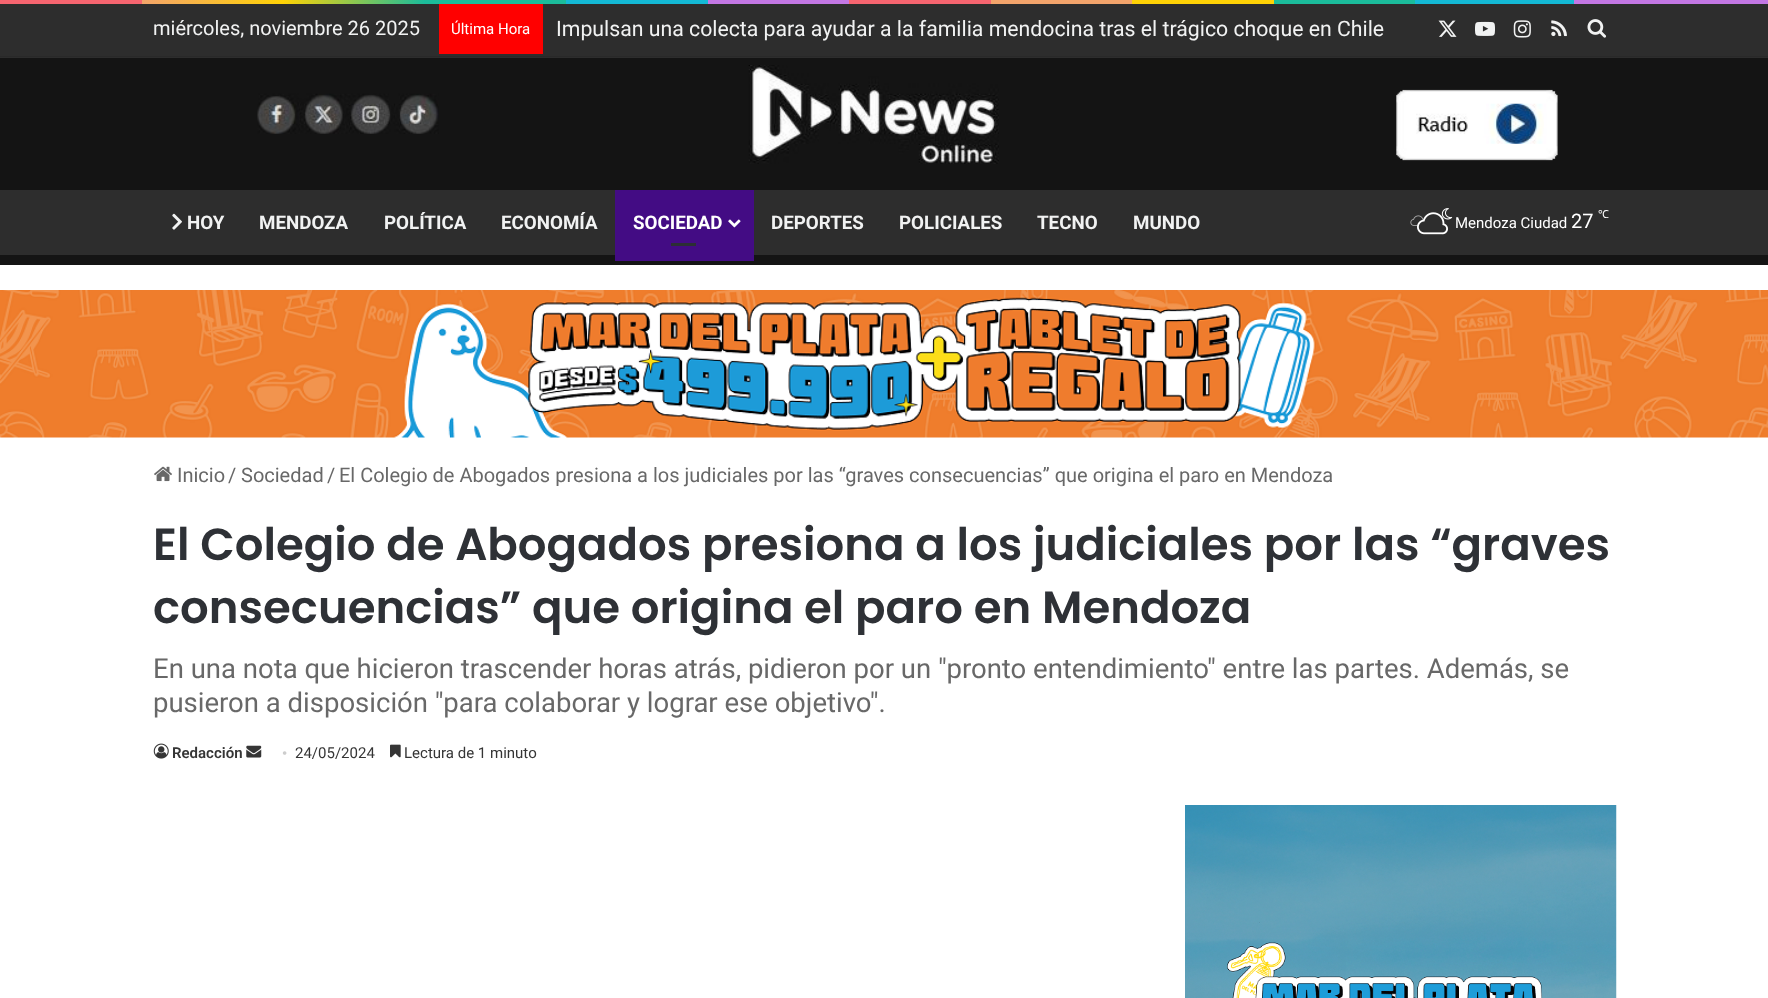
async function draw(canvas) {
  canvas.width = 1768
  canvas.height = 998
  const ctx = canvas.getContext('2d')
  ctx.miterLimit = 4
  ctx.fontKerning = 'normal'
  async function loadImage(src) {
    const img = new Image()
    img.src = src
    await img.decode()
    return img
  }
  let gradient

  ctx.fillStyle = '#fff'
  ctx.fillRect(0, 0, 1768, 998)
  gradient = ctx.createLinearGradient(0, 1.9, 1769, 1.9)
  gradient.addColorStop(0, '#f76570')
  gradient.addColorStop(0.08, '#f76570')
  gradient.addColorStop(0.08, '#f3a46b')
  gradient.addColorStop(0.16, '#ffd205')
  gradient.addColorStop(0.24, '#1bbc9b')
  gradient.addColorStop(0.32, '#1bbc9b')
  gradient.addColorStop(0.32, '#14b9d5')
  gradient.addColorStop(0.4, '#14b9d5')
  gradient.addColorStop(0.4, '#c377e4')
  gradient.addColorStop(0.48, '#c377e4')
  gradient.addColorStop(0.48, '#f76570')
  gradient.addColorStop(0.56, '#f76570')
  gradient.addColorStop(0.56, '#f3a46b')
  gradient.addColorStop(0.64, '#f3a46b')
  gradient.addColorStop(0.64, '#ffd205')
  gradient.addColorStop(0.72, '#ffd205')
  gradient.addColorStop(0.72, '#1bbc9b')
  gradient.addColorStop(0.8, '#1bbc9b')
  gradient.addColorStop(0.8, '#14b9d5')
  gradient.addColorStop(0.89, '#14b9d5')
  gradient.addColorStop(0.89, '#c377e4')
  gradient.addColorStop(1, '#c377e4')
  ctx.fillStyle = gradient
  ctx.fillRect(0, 0, 1768, 4)
  ctx.fillStyle = '#141414'
  ctx.fillRect(0, 58, 1768, 207)
  ctx.drawImage(await loadImage('image0.png'), 257, 65, 742, 99)
  ctx.fillStyle = '#2d2d2d'
  ctx.fillRect(0, 4, 1768, 54)
  ctx.fillStyle = '#292929'
  ctx.fillRect(0, 56, 1768, 1)
  ctx.font = '20px Roboto'
  ctx.fillStyle = '#f1f2f2'
  ctx.fillText('miércoles, noviembre 26 2025', 153, 35)
  ctx.fillStyle = '#f00'
  ctx.fillRect(439, 4, 104, 50)
  ctx.font = '15px Roboto'
  ctx.fillStyle = '#fff'
  ctx.fillText('Última Hora', 451, 34)
  ctx.font = '21.25px Roboto'
  ctx.fillStyle = '#f1f2f2'
  ctx.fillText('Impulsan una colecta para ayudar a la familia mendocina tras el trágico choque en Chile', 556, 36)
  ctx.drawImage(await loadImage('image1.png'), 1438, 20, 19, 17)
  ctx.drawImage(await loadImage('image2.png'), 1475, 21, 20, 15)
  ctx.drawImage(await loadImage('image3.png'), 1513, 20, 18, 18)
  ctx.drawImage(await loadImage('image4.png'), 1551, 20, 16, 17)
  ctx.drawImage(await loadImage('image5.png'), 1587, 19, 20, 19)
  ctx.drawImage(await loadImage('image6.png'), 1396, 89, 162, 72)
  ctx.fillStyle = '#2d2d2d'
  ctx.fillRect(0, 190, 1768, 65)
  ctx.drawImage(await loadImage('image7.png'), 172, 213, 10, 17)
  ctx.font = 'bold 18.75px Roboto'
  ctx.fillStyle = '#f1f2f2'
  ctx.fillText('HOY', 187, 229)
  ctx.fillText('MENDOZA', 259, 229)
  ctx.fillText('POLÍTICA', 384, 229)
  ctx.fillText('ECONOMÍA', 501, 229)
  ctx.fillStyle = '#430c84'
  ctx.fillRect(615, 190, 139, 71)
  ctx.fillStyle = '#fff'
  ctx.fillText('SOCIEDAD', 633, 229)
  ctx.drawImage(await loadImage('image8.png'), 728, 219, 13, 9)
  ctx.fillStyle = '#2c2f34'
  ctx.fillRect(671, 243, 25, 3)
  ctx.fillStyle = '#f1f2f2'
  ctx.fillText('DEPORTES', 771, 229)
  ctx.fillText('POLICIALES', 899, 229)
  ctx.fillText('TECNO', 1037, 229)
  ctx.fillText('MUNDO', 1133, 229)
  ctx.drawImage(await loadImage('image9.png'), 1441, 208, 12, 12)
  ctx.drawImage(await loadImage('image11.png'), 1410, 215, 14, 11)
  ctx.drawImage(await loadImage('image12.png'), 1417, 216, 26, 10)
  ctx.drawImage(await loadImage('image10.png'), 1417, 212, 31, 23)
  ctx.font = '15px Roboto'
  ctx.fillStyle = '#fff'
  ctx.fillText('Mendoza Ciudad', 1455, 228)
  ctx.font = '20px Roboto'
  ctx.fillText('27', 1571, 228)
  ctx.font = '11px Noto Sans'
  ctx.fillText('℃', 1598, 218)
  ctx.drawImage(await loadImage('image13.png'), 0, 290, 1768, 148)
  ctx.drawImage(await loadImage('image14.png'), 154, 466, 18, 16)
  ctx.font = '20px Roboto'
  ctx.fillStyle = '#686868'
  ctx.fillText('Inicio', 177, 482)
  ctx.fillText('/', 228, 482)
  ctx.fillText('Sociedad', 241, 482)
  ctx.fillText('/', 327, 482)
  ctx.fillText('El Colegio de Abogados presiona a los judiciales por las “graves consecuencias” que origina el paro en Mendoza', 339, 482)
  ctx.font = '600 45px Poppins'
  ctx.fillStyle = '#2e3136'
  ctx.fillText('El Colegio de Abogados presiona a los judiciales por las “graves', 153, 560)
  ctx.fillText('consecuencias” que origina el paro en Mendoza', 153, 623)
  ctx.font = '27.5px Roboto'
  ctx.fillStyle = '#686868'
  ctx.fillText('En una nota que hicieron trascender horas atrás, pidieron por un "pronto entendimiento" entre las partes. Además, se', 153, 678)
  ctx.fillText('pusieron a disposición "para colaborar y lograr ese objetivo".', 153, 712)
  ctx.drawImage(await loadImage('image15.png'), 153, 743, 16, 16)
  ctx.font = '600 15px Roboto'
  ctx.fillStyle = '#353535'
  ctx.fillText('Redacción', 172, 758)
  ctx.drawImage(await loadImage('image16.png'), 246, 745, 16, 13)
  ctx.font = '15px Liberation Serif'
  ctx.fillStyle = '#cdcdcd'
  ctx.fillText('•', 282, 758)
  ctx.font = '15px Roboto'
  ctx.fillStyle = '#353535'
  ctx.fillText('24/05/2024', 295, 758)
  ctx.drawImage(await loadImage('image17.png'), 390, 744, 11, 14)
  ctx.fillText('Lectura de 1 minuto', 404, 758)
  ctx.drawImage(await loadImage('image18.png'), 1185, 805, 432, 193)
}

draw(document.querySelector('canvas'))
